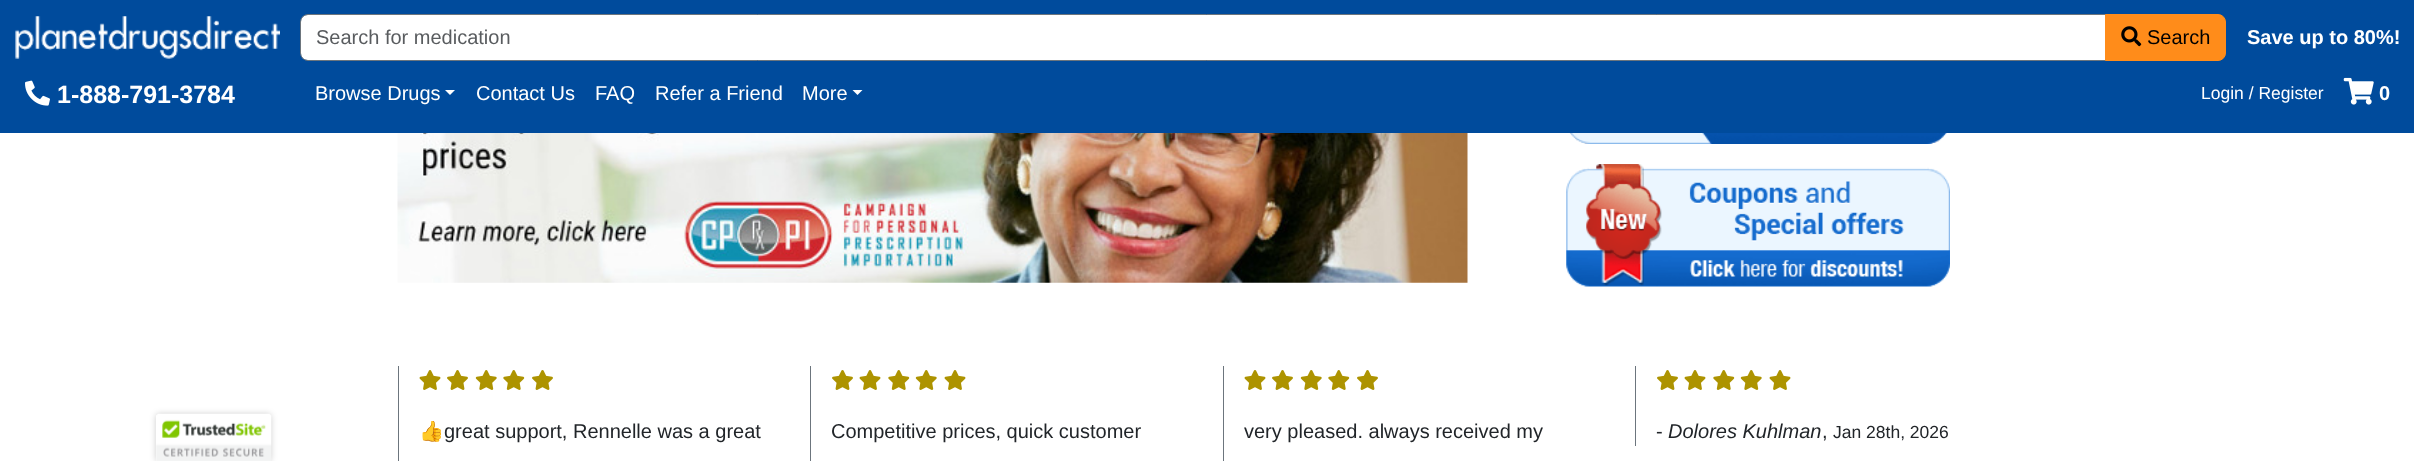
async function draw(canvas) {
  canvas.width = 2414
  canvas.height = 461
  const ctx = canvas.getContext('2d')
  ctx.miterLimit = 4
  ctx.fontKerning = 'normal'
  async function loadImage(src) {
    const img = new Image()
    img.src = src
    await img.decode()
    return img
  }

  ctx.fillStyle = '#fff'
  ctx.fillRect(0, 0, 2414, 461)
  ctx.fillStyle = '#004b9c'
  ctx.fillRect(0, 0, 2414, 133)
  ctx.drawImage(await loadImage('image0.png'), 15, 16, 265, 43)
  ctx.fillStyle = '#fff'
  ctx.beginPath()
  ctx.roundRect(301, 15, 1804, 45, [6, 0, 0, 6])
  ctx.fill()
  ctx.beginPath()
  ctx.roundRect(300.5, 14.5, 1805, 46, [7.5, 0, 0, 7.5])
  ctx.strokeStyle = '#6c757d'
  ctx.stroke()
  ctx.font = '20px Liberation Sans'
  ctx.fillStyle = '#595c5f'
  ctx.fillText('Search for medication', 316, 44)
  ctx.fillStyle = '#ff8c1a'
  ctx.beginPath()
  ctx.roundRect(2105.5, 14.5, 120, 46, [0, 7.5, 7.5, 0])
  ctx.fill()
  ctx.strokeStyle = '#ff8c1a'
  ctx.stroke()
  ctx.drawImage(await loadImage('image1.png'), 2121, 26, 21, 21)
  ctx.fillStyle = '#000'
  ctx.fillText('Search', 2147, 44)
  ctx.font = 'bold 20px Liberation Sans'
  ctx.fillStyle = '#fff'
  ctx.fillText('Save up to 80%!', 2247, 44)
  ctx.drawImage(await loadImage('image2.png'), 25, 80, 25, 26)
  ctx.font = 'bold 25px Liberation Sans'
  ctx.fillText('1-888-791-3784', 57, 103)
  ctx.font = '20px Liberation Sans'
  ctx.fillText('Browse Drugs', 315, 100)
  ctx.beginPath()
  ctx.moveTo(445, 90)
  ctx.lineTo(455, 90)
  ctx.lineTo(450, 95)
  ctx.closePath()
  ctx.fill()
  ctx.fillText('Contact Us', 476, 100)
  ctx.fillText('FAQ', 595, 100)
  ctx.fillText('Refer a Friend', 655, 100)
  ctx.fillText('More', 802, 100)
  ctx.beginPath()
  ctx.moveTo(852.5, 90)
  ctx.lineTo(862.5, 90)
  ctx.lineTo(857.5, 95)
  ctx.closePath()
  ctx.fill()
  ctx.font = '17.5px Liberation Sans'
  ctx.fillText('Login / Register', 2201, 99)
  ctx.drawImage(await loadImage('image3.png'), 2343, 77, 31, 28)
  ctx.font = 'bold 20px Liberation Sans'
  ctx.fillText('0', 2379, 100)
  ctx.fillStyle = '#00000033'
  ctx.filter = 'blur(3px)'
  ctx.beginPath()
  ctx.roundRect(156, 414, 115, 47, 2.5)
  ctx.fill()
  ctx.filter = 'none'
  ctx.fillStyle = '#fff'
  ctx.beginPath()
  ctx.roundRect(156, 414, 115, 47, [2.5, 2.5, 0, 0])
  ctx.fill()
  ctx.drawImage(await loadImage('image4.png'), 156, 413, 116, 48)
  ctx.drawImage(await loadImage('image5.png'), 397, 133, 1071, 150)
  ctx.drawImage(await loadImage('image6.png'), 1569, 133, 378, 11)
  ctx.drawImage(await loadImage('image7.png'), 1566, 164, 384, 123)
  ctx.fillStyle = '#6c757d'
  ctx.fillRect(398, 366, 1, 95)
  ctx.drawImage(await loadImage('image8.png'), 419, 370, 22, 20)
  ctx.drawImage(await loadImage('image9.png'), 447, 370, 21, 20)
  ctx.drawImage(await loadImage('image10.png'), 475, 370, 22, 20)
  ctx.drawImage(await loadImage('image11.png'), 503, 370, 22, 20)
  ctx.drawImage(await loadImage('image9.png'), 532, 370, 21, 20)
  ctx.font = '20px Noto Color Emoji'
  ctx.fillStyle = '#212529'
  ctx.fillText('👍', 419, 438)
  ctx.font = '20px Liberation Sans'
  ctx.fillText('great support, Rennelle was a great', 444, 438)
  ctx.fillStyle = '#6c757d'
  ctx.fillRect(810, 366, 1, 95)
  ctx.drawImage(await loadImage('image9.png'), 832, 370, 21, 20)
  ctx.drawImage(await loadImage('image8.png'), 859, 370, 22, 20)
  ctx.drawImage(await loadImage('image11.png'), 888, 370, 22, 20)
  ctx.drawImage(await loadImage('image10.png'), 915, 370, 22, 20)
  ctx.drawImage(await loadImage('image8.png'), 944, 370, 22, 20)
  ctx.fillStyle = '#212529'
  ctx.fillText('Competitive prices, quick customer', 831, 438)
  ctx.fillStyle = '#6c757d'
  ctx.fillRect(1223, 366, 1, 95)
  ctx.drawImage(await loadImage('image8.png'), 1244, 370, 22, 20)
  ctx.drawImage(await loadImage('image9.png'), 1272, 370, 21, 20)
  ctx.drawImage(await loadImage('image10.png'), 1300, 370, 22, 20)
  ctx.drawImage(await loadImage('image11.png'), 1328, 370, 22, 20)
  ctx.drawImage(await loadImage('image9.png'), 1357, 370, 21, 20)
  ctx.fillStyle = '#212529'
  ctx.fillText('very pleased. always received my', 1244, 438)
  ctx.fillStyle = '#6c757d'
  ctx.fillRect(1635, 366, 1, 80)
  ctx.drawImage(await loadImage('image9.png'), 1657, 370, 21, 20)
  ctx.drawImage(await loadImage('image8.png'), 1684, 370, 22, 20)
  ctx.drawImage(await loadImage('image11.png'), 1713, 370, 22, 20)
  ctx.drawImage(await loadImage('image10.png'), 1740, 370, 22, 20)
  ctx.drawImage(await loadImage('image8.png'), 1769, 370, 22, 20)
  ctx.fillStyle = '#212529'
  ctx.fillText('-', 1656, 438)
  ctx.font = 'italic 20px Liberation Sans'
  ctx.fillText('Dolores Kuhlman', 1668, 438)
  ctx.font = '17.5px Liberation Sans'
  ctx.fillText('Jan 28th, 2026', 1833, 438)
  ctx.font = '20px Liberation Sans'
  ctx.fillText(',', 1822, 438)
}

draw(document.querySelector('canvas'))
